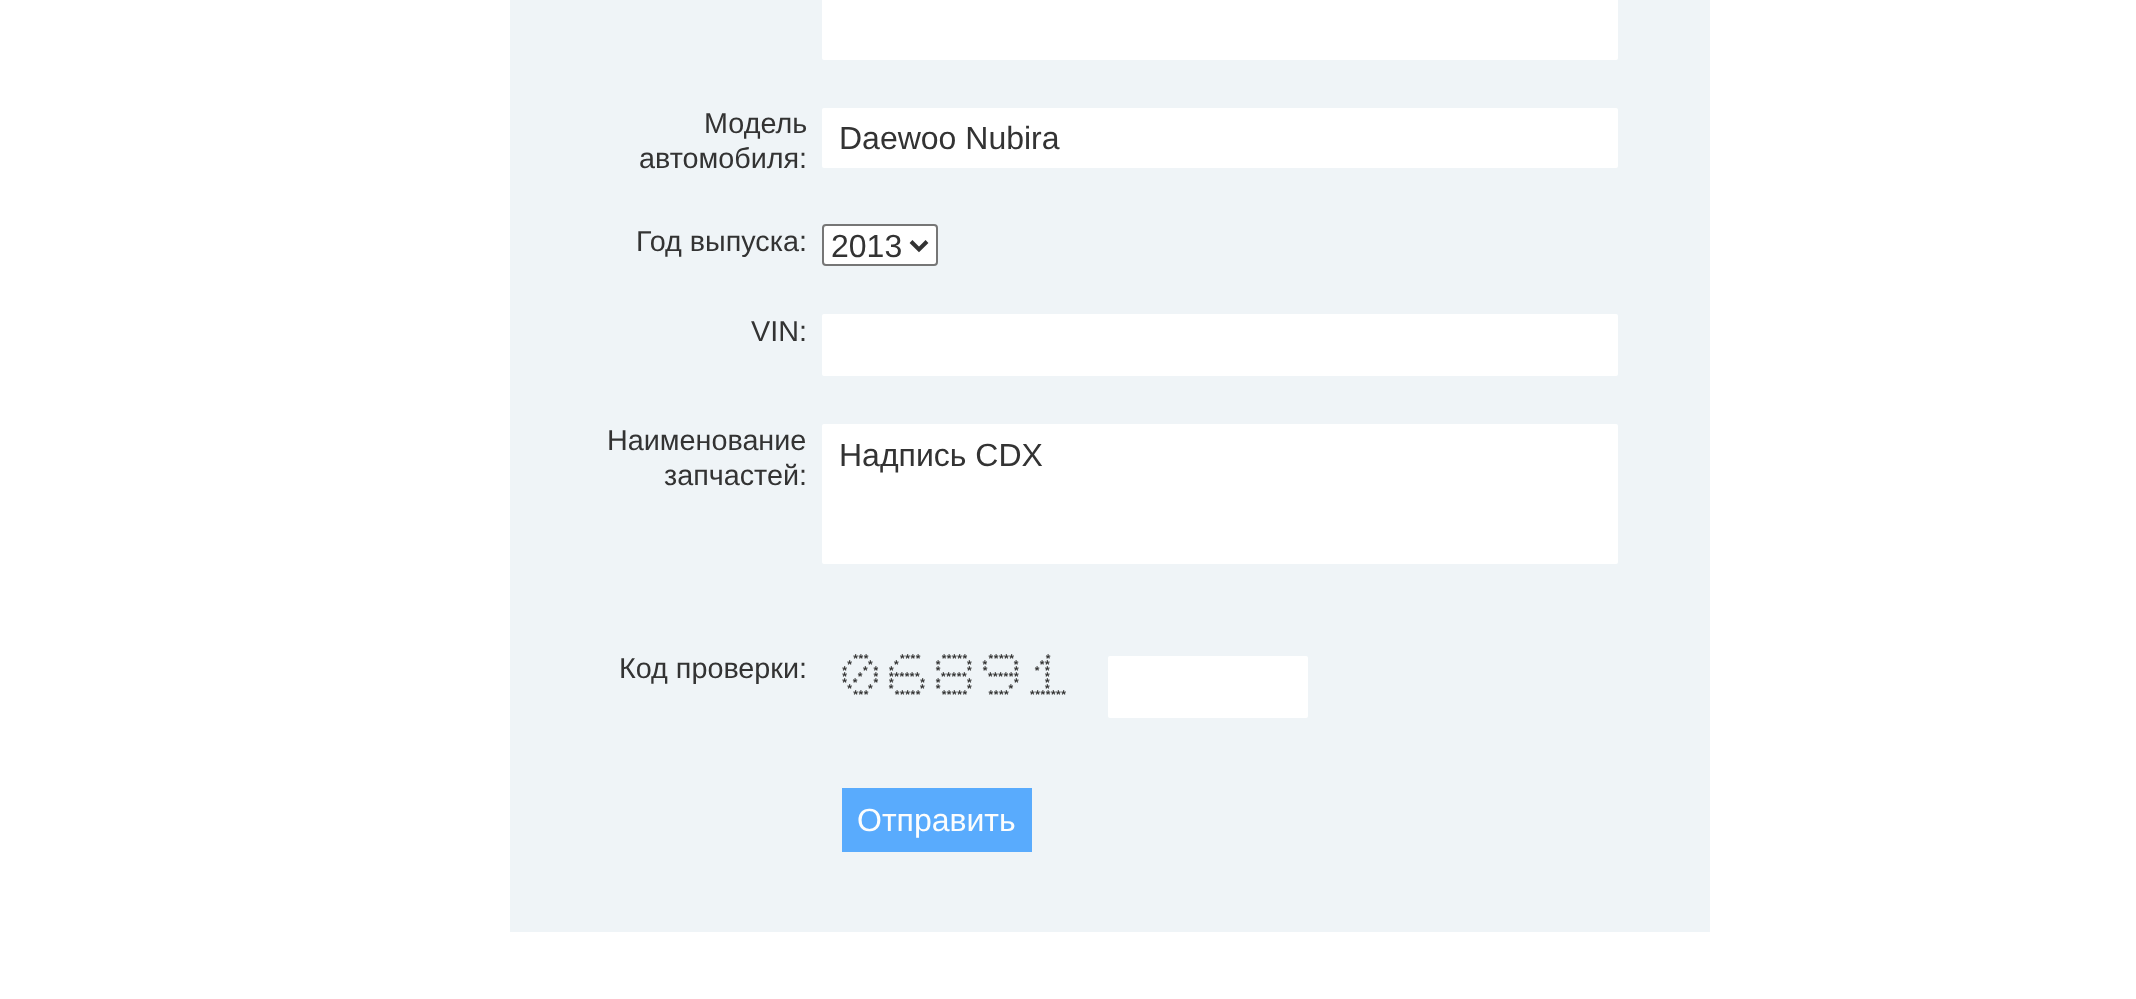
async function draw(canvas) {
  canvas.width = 2136
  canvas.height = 999
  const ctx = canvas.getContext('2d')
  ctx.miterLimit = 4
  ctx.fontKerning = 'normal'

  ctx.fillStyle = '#fff'
  ctx.fillRect(0, 0, 2136, 999)
  ctx.fillStyle = '#eff4f7'
  ctx.fillRect(510, 0, 1200, 932)
  ctx.fillStyle = '#fff'
  ctx.beginPath()
  ctx.roundRect(822, -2, 796, 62, 2)
  ctx.fill()
  ctx.font = '28.75px Liberation Sans'
  ctx.fillStyle = '#333'
  ctx.fillText('Модель', 704, 133)
  ctx.fillText('автомобиля:', 639, 168)
  ctx.fillStyle = '#fff'
  ctx.beginPath()
  ctx.roundRect(822, 108, 796, 60, 2)
  ctx.fill()
  ctx.font = '32px Liberation Sans'
  ctx.fillStyle = '#333'
  ctx.fillText('Daewoo Nubira', 839, 149)
  ctx.font = '28.75px Liberation Sans'
  ctx.fillText('Год выпуска:', 636, 251)
  ctx.fillStyle = '#fff'
  ctx.beginPath()
  ctx.roundRect(823, 225, 114, 40, 3)
  ctx.fill()
  ctx.strokeStyle = '#767676'
  ctx.lineWidth = 2
  ctx.stroke()
  ctx.beginPath()
  ctx.moveTo(911, 241.5)
  ctx.lineTo(919, 249.5)
  ctx.lineTo(927, 241.5)
  ctx.strokeStyle = '#333'
  ctx.lineWidth = 4
  ctx.stroke()
  ctx.font = '32px Liberation Sans'
  ctx.fillStyle = '#333'
  ctx.fillText('2013', 831, 257)
  ctx.font = '28.75px Liberation Sans'
  ctx.fillText('VIN:', 751, 341)
  ctx.fillStyle = '#fff'
  ctx.beginPath()
  ctx.roundRect(822, 314, 796, 62, 2)
  ctx.fill()
  ctx.fillStyle = '#333'
  ctx.fillText('Наименование', 607, 450)
  ctx.fillText('запчастей:', 664, 485)
  ctx.fillStyle = '#fff'
  ctx.beginPath()
  ctx.roundRect(822, 424, 796, 140, 2)
  ctx.fill()
  ctx.font = '32px Liberation Sans'
  ctx.fillStyle = '#333'
  ctx.fillText('Надпись CDX', 839, 466)
  ctx.font = '28.75px Liberation Sans'
  ctx.fillText('Код проверки:', 619, 678)
  ctx.letterSpacing = '-2px'
  ctx.font = 'bold 12px Liberation Mono'
  ctx.fillText('***      ****    *****    *****      *', 852, 663)
  ctx.fillText('*   *    *       *     *  *     *    **', 846, 669)
  ctx.fillText('*   * *  *        *     *  *     *   * *', 841, 675)
  ctx.fillText('*  *  *  ******    *****    ******     *', 841, 681)
  ctx.fillText('* *   *  *     *  *     *        *     *', 841, 687)
  ctx.fillText('*   *   *     *  *     *       *      *', 846, 693)
  ctx.fillText('***     *****    *****    ****    *******', 852, 699)
  ctx.fillStyle = '#fff'
  ctx.beginPath()
  ctx.roundRect(1108, 656, 200, 62, 2)
  ctx.fill()
  ctx.fillStyle = '#59abfd'
  ctx.fillRect(842, 788, 190, 64)
  ctx.letterSpacing = '0px'
  ctx.font = '32px Liberation Sans'
  ctx.fillStyle = '#fcfdfd'
  ctx.fillText('Отправить', 857, 831)
}

draw(document.querySelector('canvas'))
